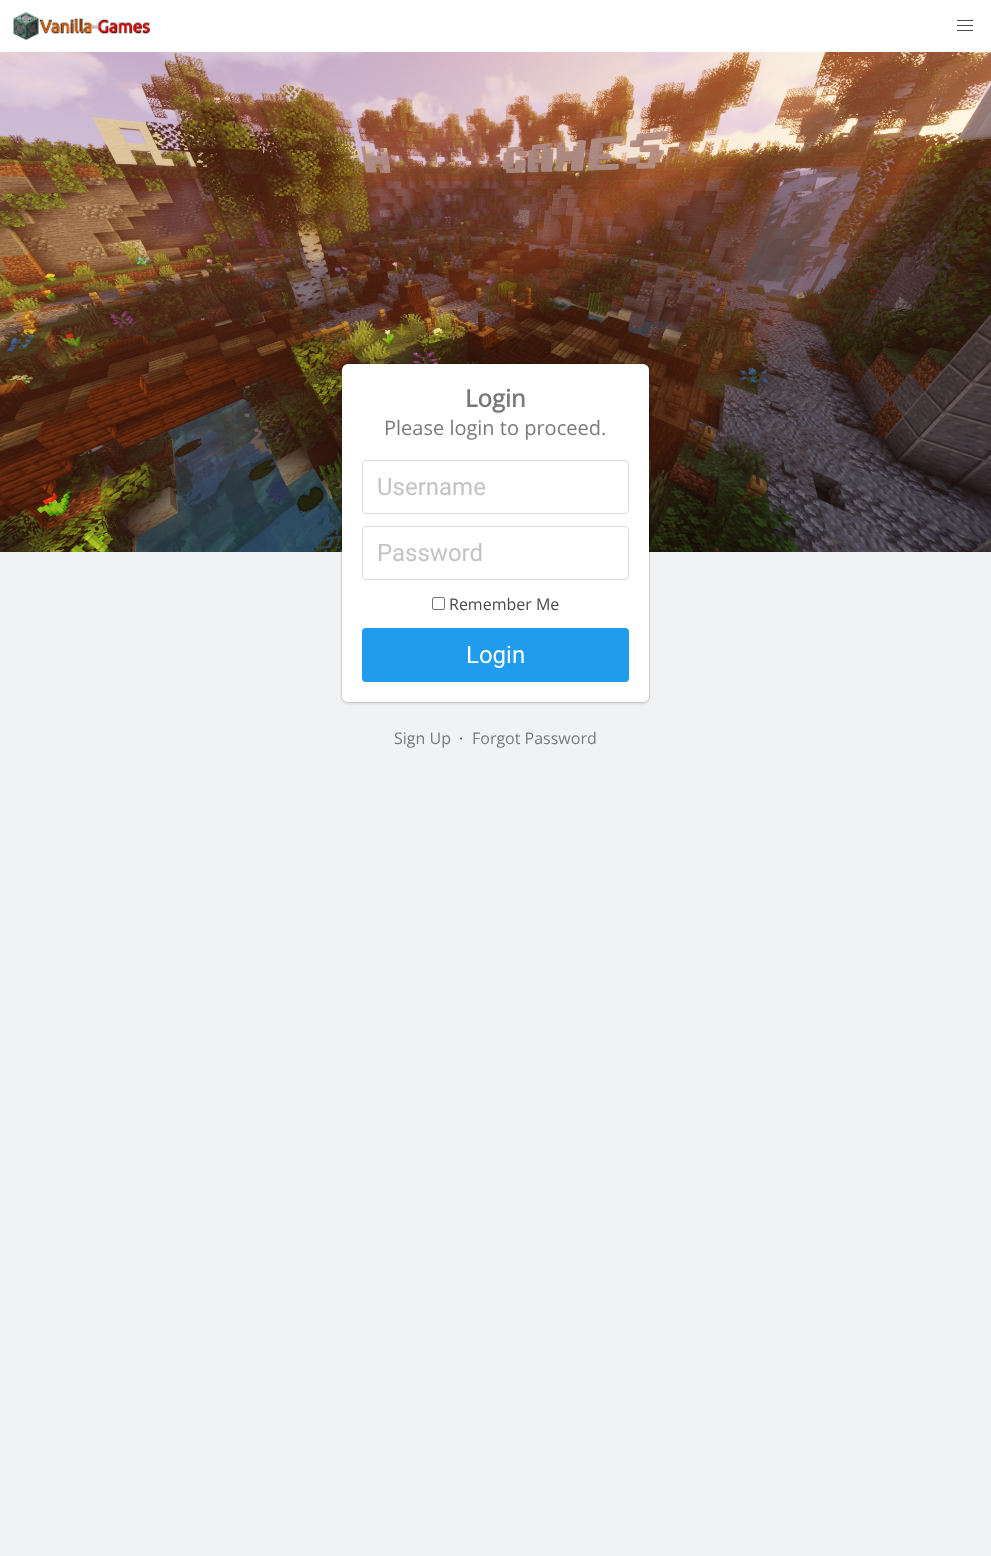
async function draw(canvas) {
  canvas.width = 991
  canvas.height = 1556
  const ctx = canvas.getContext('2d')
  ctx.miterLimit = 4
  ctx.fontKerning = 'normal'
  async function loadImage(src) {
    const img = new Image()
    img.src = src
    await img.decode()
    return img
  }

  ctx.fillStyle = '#f0f2f4'
  ctx.fillRect(0, 0, 991, 1556)
  ctx.fillStyle = '#fff'
  ctx.fillRect(0, 0, 991, 52)
  ctx.drawImage(await loadImage('image0.png'), 13, 12, 138, 28)
  ctx.fillStyle = '#4a4a4a'
  ctx.fillRect(957, 20, 16, 1)
  ctx.fillRect(957, 25, 16, 1)
  ctx.fillRect(957, 30, 16, 1)
  ctx.drawImage(await loadImage('image1.png'), 0, 52, 991, 500)
  ctx.beginPath()
  ctx.roundRect(341.5, 363.5, 308, 339, 6.5)
  ctx.strokeStyle = '#0a0a0a1a'
  ctx.stroke()
  ctx.fillStyle = '#0a0a0a1a'
  ctx.filter = 'blur(1.5px)'
  ctx.beginPath()
  ctx.roundRect(342, 366, 307, 338, 6)
  ctx.fill()
  ctx.filter = 'none'
  ctx.fillStyle = '#fff'
  ctx.beginPath()
  ctx.roundRect(342, 364, 307, 338, 6)
  ctx.fill()
  ctx.font = 'bold 24px Open Sans'
  ctx.fillStyle = '#7a7a7a'
  ctx.fillText('Login', 465, 407)
  ctx.font = '20px Open Sans'
  ctx.fillText('Please login to proceed.', 384, 435)
  ctx.beginPath()
  ctx.roundRect(362.5, 460.5, 266, 53, 3.5)
  ctx.strokeStyle = '#dbdbdb'
  ctx.stroke()
  ctx.font = '24px Roboto'
  ctx.fillStyle = '#c3c3c3'
  ctx.fillText('Username', 377, 495)
  ctx.beginPath()
  ctx.roundRect(362.5, 526.5, 266, 53, 3.5)
  ctx.stroke()
  ctx.fillText('Password', 377, 561)
  ctx.beginPath()
  ctx.roundRect(432.5, 597.5, 12, 12, 1.5)
  ctx.strokeStyle = '#767676'
  ctx.stroke()
  ctx.font = '16px Open Sans'
  ctx.fillStyle = '#4a4a4a'
  ctx.fillText('Remember Me', 449, 610)
  ctx.fillStyle = '#209cee'
  ctx.beginPath()
  ctx.roundRect(362, 628, 267, 54, 4)
  ctx.fill()
  ctx.font = '24px Roboto'
  ctx.fillStyle = '#fff'
  ctx.fillText('Login', 466, 663)
  ctx.font = '16px Open Sans'
  ctx.fillStyle = '#7a7a7a'
  ctx.fillText('Sign Up', 394, 744)
  ctx.fillStyle = '#4a4a4a'
  ctx.fillText('·', 459, 744)
  ctx.fillStyle = '#7a7a7a'
  ctx.fillText('Forgot Password', 472, 744)
}

draw(document.querySelector('canvas'))
